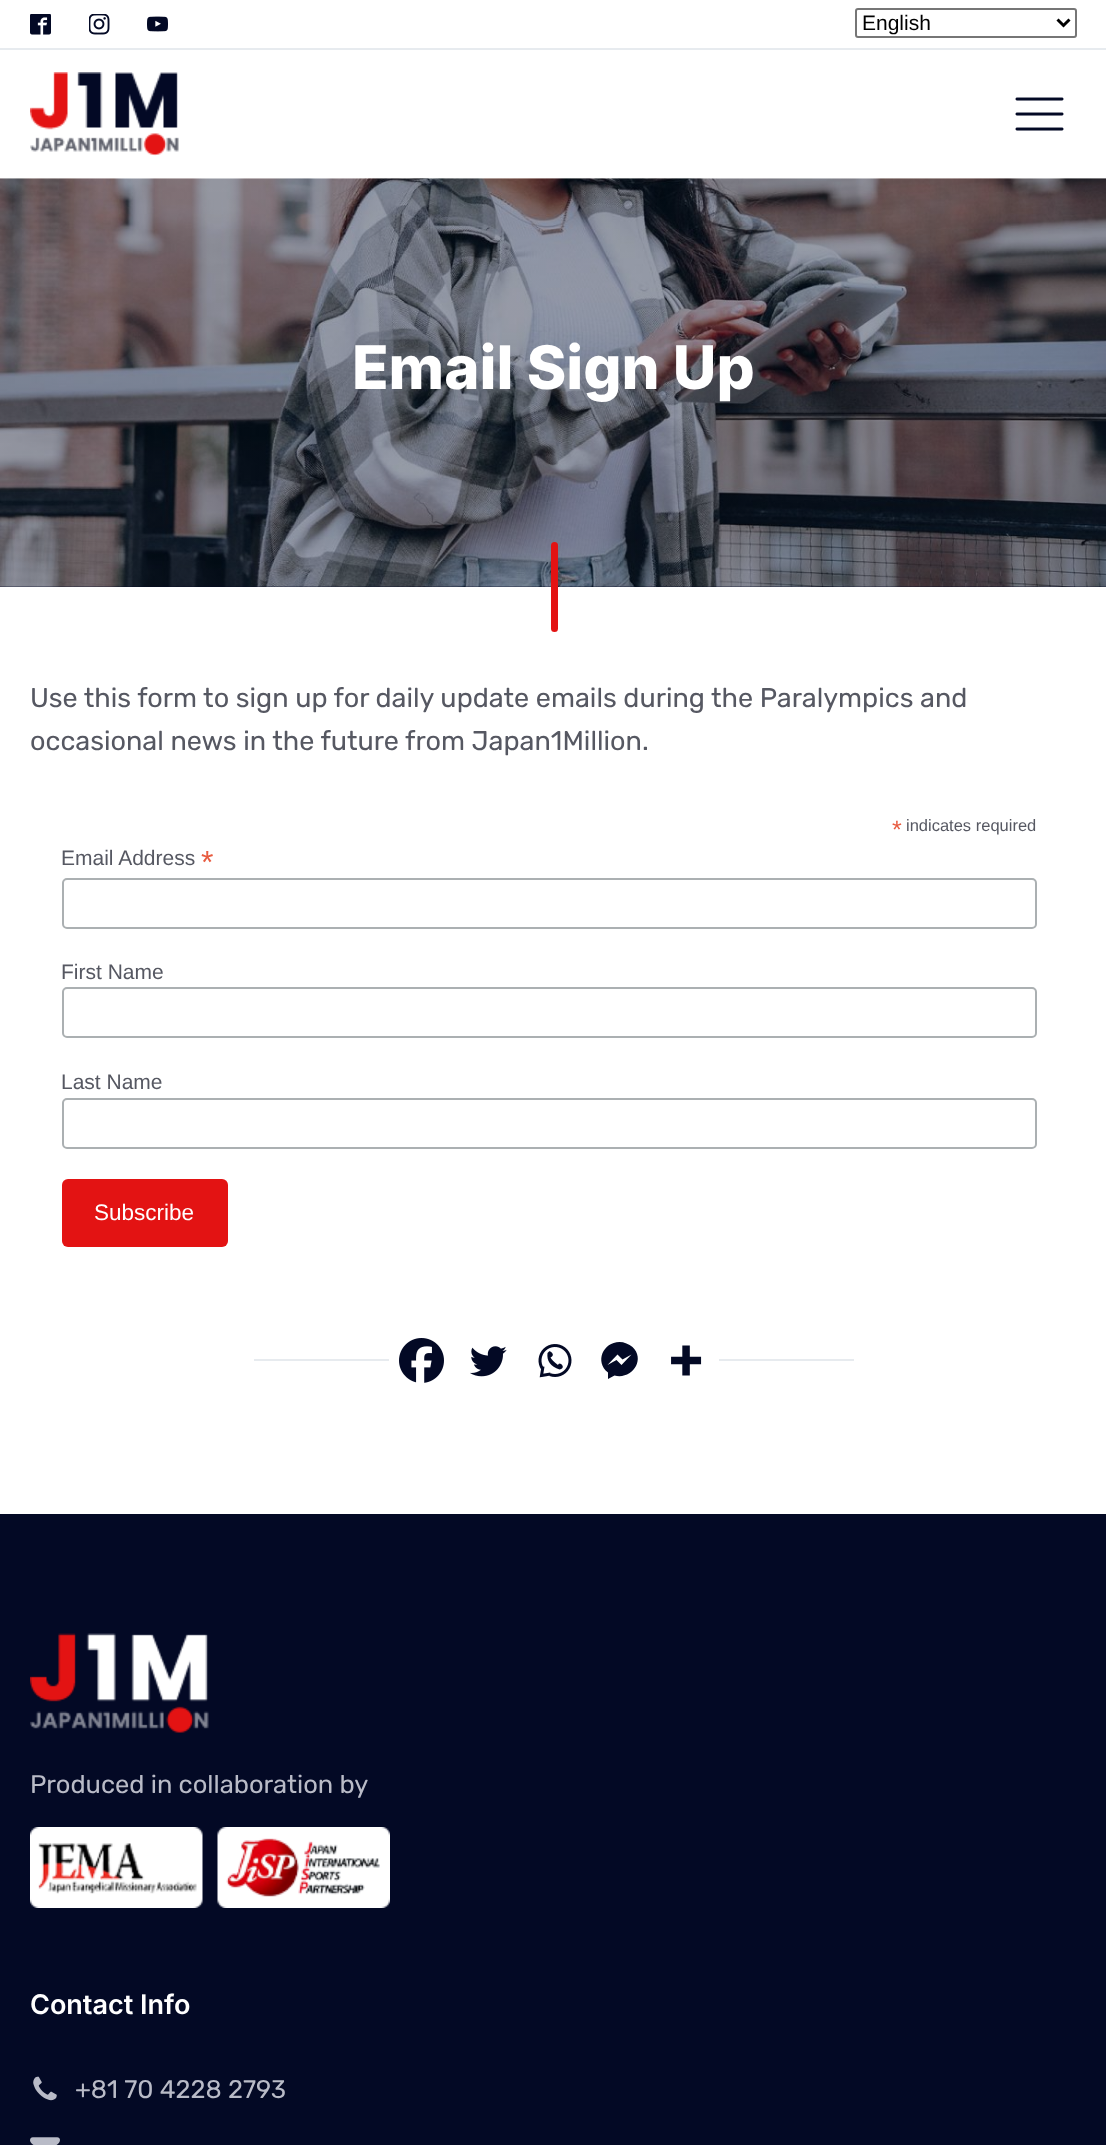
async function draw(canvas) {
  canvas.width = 1106
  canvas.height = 2145
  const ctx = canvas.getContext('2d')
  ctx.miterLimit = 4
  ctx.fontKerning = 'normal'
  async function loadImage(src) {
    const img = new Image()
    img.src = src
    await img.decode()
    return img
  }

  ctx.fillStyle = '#fff'
  ctx.fillRect(0, 0, 1106, 2145)
  ctx.fillStyle = '#e7ebef'
  ctx.fillRect(0, 48, 1106, 2)
  ctx.drawImage(await loadImage('image0.png'), 30, 14, 21, 21)
  ctx.drawImage(await loadImage('image1.png'), 89, 14, 21, 21)
  ctx.drawImage(await loadImage('image2.png'), 147, 16, 21, 16)
  ctx.beginPath()
  ctx.roundRect(856, 9, 220, 28, 2)
  ctx.strokeStyle = '#767676'
  ctx.lineWidth = 2
  ctx.stroke()
  ctx.beginPath()
  ctx.moveTo(1057.5, 19.5)
  ctx.lineTo(1063.5, 25.5)
  ctx.lineTo(1069.5, 19.5)
  ctx.strokeStyle = '#000'
  ctx.lineWidth = 3
  ctx.stroke()
  ctx.font = '21px Liberation Sans'
  ctx.fillStyle = '#000'
  ctx.fillText('English', 862, 30)
  ctx.drawImage(await loadImage('image3.png'), 30, 72, 149, 84)
  ctx.drawImage(await loadImage('image4.png'), 1015, 97, 49, 34)
  ctx.fillStyle = '#030925'
  ctx.fillRect(0, 586, 1106, 1)
  ctx.drawImage(await loadImage('image5.png'), 0, 178, 1106, 409)
  ctx.font = '800 60px Inter'
  ctx.fillStyle = '#fff'
  ctx.fillText('Email Sign Up', 352, 389)
  ctx.fillStyle = '#e31313'
  ctx.beginPath()
  ctx.roundRect(551, 542, 7, 90, 3.5)
  ctx.fill()
  ctx.font = '27px Rubik'
  ctx.fillStyle = '#565862'
  ctx.fillText('Use this form to sign up for daily update emails during the Paralympics and', 30, 707)
  ctx.fillText('occasional news in the future from Japan1Million.', 30, 750)
  ctx.font = '25px Liberation Sans'
  ctx.fillStyle = '#e85c41'
  ctx.fillText('*', 892, 838)
  ctx.font = '16.5px Liberation Sans'
  ctx.fillStyle = '#565862'
  ctx.fillText('indicates required', 906, 831)
  ctx.font = '21px Liberation Sans'
  ctx.fillText('Email Address', 61, 865)
  ctx.font = '32px Liberation Sans'
  ctx.fillStyle = '#e85c41'
  ctx.fillText('*', 201, 873)
  ctx.beginPath()
  ctx.roundRect(63, 879, 973, 49, 4)
  ctx.strokeStyle = '#abb0b2'
  ctx.lineWidth = 2
  ctx.stroke()
  ctx.font = '21px Liberation Sans'
  ctx.fillStyle = '#565862'
  ctx.fillText('First Name', 61, 979)
  ctx.beginPath()
  ctx.roundRect(63, 988, 973, 49, 4)
  ctx.stroke()
  ctx.fillText('Last Name', 61, 1089)
  ctx.beginPath()
  ctx.roundRect(63, 1099, 973, 49, 4)
  ctx.stroke()
  ctx.fillStyle = '#e31313'
  ctx.beginPath()
  ctx.roundRect(62, 1179, 166, 68, 6)
  ctx.fill()
  ctx.font = '22.5px Liberation Sans'
  ctx.fillStyle = '#fff'
  ctx.fillText('Subscribe', 94, 1220)
  ctx.fillStyle = '#e7ebef'
  ctx.fillRect(254, 1359, 600, 2)
  ctx.fillStyle = '#fff'
  ctx.fillRect(389, 1359, 330, 2)
  ctx.drawImage(await loadImage('image6.png'), 399, 1338, 45, 45)
  ctx.drawImage(await loadImage('image7.png'), 470, 1346, 37, 31)
  ctx.drawImage(await loadImage('image8.png'), 538, 1344, 34, 34)
  ctx.fillStyle = '#030925'
  ctx.beginPath()
  ctx.moveTo(619.5, 1342)
  ctx.bezierCurveTo(603, 1342, 594.5, 1362, 608, 1372.5)
  ctx.lineTo(608, 1379)
  ctx.lineTo(614.5, 1375.5)
  ctx.bezierCurveTo(631.5, 1380, 646, 1360, 632.5, 1347)
  ctx.bezierCurveTo(629, 1344, 624, 1342, 619.5, 1342)
  ctx.closePath()
  ctx.moveTo(621.5, 1365)
  ctx.lineTo(616.5, 1360)
  ctx.lineTo(607.5, 1365)
  ctx.lineTo(617.5, 1354.5)
  ctx.lineTo(622.5, 1359.5)
  ctx.lineTo(631.5, 1354.5)
  ctx.closePath()
  ctx.fill()
  ctx.drawImage(await loadImage('image9.png'), 671, 1345, 31, 31)
  ctx.fillRect(0, 1514, 1106, 631)
  ctx.drawImage(await loadImage('image10.png'), 30, 1633, 179, 100)
  ctx.font = '25.5px Rubik'
  ctx.fillStyle = '#b9bbc7'
  ctx.fillText('Produced in collaboration by', 30, 1793)
  ctx.drawImage(await loadImage('image11.png'), 30, 1827, 173, 81)
  ctx.drawImage(await loadImage('image12.png'), 217, 1827, 173, 81)
  ctx.font = '600 27px Inter'
  ctx.fillStyle = '#fff'
  ctx.fillText('Contact Info', 30, 2014)
  ctx.drawImage(await loadImage('image13.png'), 33, 2076, 24, 25)
  ctx.font = '25.5px Rubik'
  ctx.fillStyle = '#b9bbc7'
  ctx.fillText('+81 70 4228 2793', 75, 2098)
  ctx.drawImage(await loadImage('image14.png'), 30, 2137, 30, 8)
}

draw(document.querySelector('canvas'))
